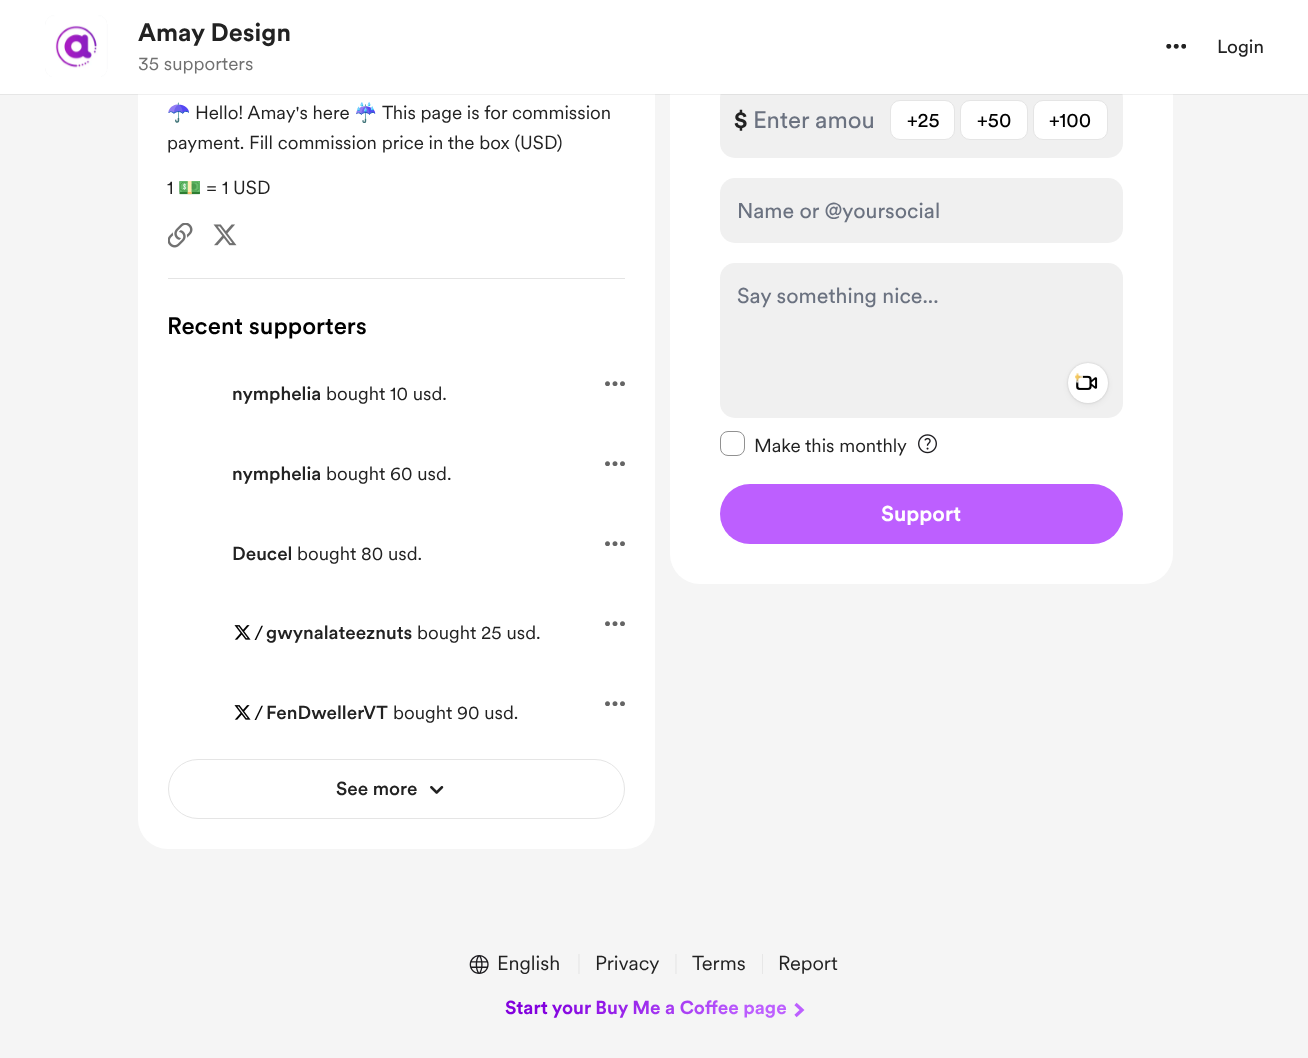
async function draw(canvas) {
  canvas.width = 1308
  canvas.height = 1058
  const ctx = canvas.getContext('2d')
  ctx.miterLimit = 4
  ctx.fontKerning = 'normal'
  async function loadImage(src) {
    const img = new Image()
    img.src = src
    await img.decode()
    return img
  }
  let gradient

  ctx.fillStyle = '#f5f5f5'
  ctx.fillRect(0, 0, 1308, 1058)
  ctx.fillStyle = '#fff'
  ctx.beginPath()
  ctx.roundRect(138, -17, 517, 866, 30)
  ctx.fill()
  ctx.beginPath()
  ctx.roundRect(670, -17, 503, 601, 30)
  ctx.fill()
  ctx.fillStyle = '#f0f0f0'
  ctx.beginPath()
  ctx.roundRect(720, 83, 403, 75, 15)
  ctx.fill()
  ctx.fillStyle = '#0000000f'
  ctx.filter = 'blur(0.5px)'
  ctx.beginPath()
  ctx.rect(0, 1, 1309, 94)
  ctx.fill()
  ctx.filter = 'none'
  ctx.fillStyle = '#fff'
  ctx.fillRect(0, 0, 1308, 94)
  ctx.drawImage(await loadImage('image0.png'), 45, 15, 63, 62)
  ctx.font = 'bold 25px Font'
  ctx.fillStyle = '#222'
  ctx.fillText('Amay Design', 138, 41)
  ctx.font = '18.75px Font'
  ctx.fillStyle = '#717171'
  ctx.fillText('35 supporters', 138, 70)
  ctx.drawImage(await loadImage('image1.png'), 1166, 44, 20, 5)
  ctx.font = '18.75px "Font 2"'
  ctx.fillStyle = '#222'
  ctx.fillText('Login', 1217, 53)
  ctx.fillStyle = '#e4e4e4'
  ctx.fillRect(168, 278, 457, 1)
  ctx.font = '18.75px Noto Color Emoji'
  ctx.fillStyle = '#222'
  ctx.fillText('☂️', 167, 119)
  ctx.font = '18.75px Font'
  ctx.fillText('Hello! Amay\'s here', 195, 119)
  ctx.font = '18.75px Noto Color Emoji'
  ctx.fillText('☔️', 354, 119)
  ctx.font = '18.75px Font'
  ctx.fillText('This page is for commission', 382, 119)
  ctx.fillText('payment. Fill commission price in the box (USD)', 167, 149)
  ctx.fillText('1', 167, 194)
  ctx.font = '18.75px Noto Color Emoji'
  ctx.fillText('💵', 178, 194)
  ctx.font = '18.75px Font'
  ctx.fillText('= 1 USD', 206, 194)
  ctx.drawImage(await loadImage('image2.png'), 168, 223, 25, 25)
  ctx.drawImage(await loadImage('image3.png'), 213, 224, 24, 22)
  ctx.font = '500 23.75px Font'
  ctx.fillStyle = '#000'
  ctx.fillText('Recent supporters', 167, 334)
  ctx.drawImage(await loadImage('image4.png'), 605, 381, 20, 5)
  ctx.font = '500 18.75px Font'
  ctx.fillStyle = '#222'
  ctx.fillText('nymphelia', 232, 400)
  ctx.font = '18.75px Font'
  ctx.fillText('bought 10 usd.', 326, 400)
  ctx.drawImage(await loadImage('image4.png'), 605, 461, 20, 5)
  ctx.font = '500 18.75px Font'
  ctx.fillText('nymphelia', 232, 480)
  ctx.font = '18.75px Font'
  ctx.fillText('bought 60 usd.', 326, 480)
  ctx.drawImage(await loadImage('image4.png'), 605, 541, 20, 5)
  ctx.font = '500 18.75px Font'
  ctx.fillText('Deucel', 232, 560)
  ctx.font = '18.75px Font'
  ctx.fillText('bought 80 usd.', 297, 560)
  ctx.drawImage(await loadImage('image4.png'), 605, 621, 20, 5)
  ctx.drawImage(await loadImage('image5.png'), 234, 625, 17, 15)
  ctx.font = '20px Font'
  ctx.fillStyle = '#000'
  ctx.fillText('/', 254, 640)
  ctx.font = '500 18.75px Font'
  ctx.fillStyle = '#222'
  ctx.fillText('gwynalateeznuts', 266, 639)
  ctx.font = '18.75px Font'
  ctx.fillText('bought 25 usd.', 417, 639)
  ctx.drawImage(await loadImage('image4.png'), 605, 701, 20, 5)
  ctx.drawImage(await loadImage('image5.png'), 234, 705, 17, 15)
  ctx.font = '20px Font'
  ctx.fillStyle = '#000'
  ctx.fillText('/', 254, 720)
  ctx.font = '500 18.75px Font'
  ctx.fillStyle = '#222'
  ctx.fillText('FenDwellerVT', 266, 719)
  ctx.font = '18.75px Font'
  ctx.fillText('bought 90 usd.', 393, 719)
  ctx.beginPath()
  ctx.roundRect(168.5, 759.5, 456, 59, 29.5)
  ctx.strokeStyle = '#e5e5e5'
  ctx.stroke()
  ctx.font = '500 18.75px Font'
  ctx.fillText('See more', 336, 795)
  ctx.drawImage(await loadImage('image6.png'), 430, 786, 14, 8)
  ctx.font = 'bold 23.75px Font'
  ctx.fillText('$', 734, 128)
  ctx.font = '23.75px "Font 2"'
  ctx.fillStyle = '#6b7280'
  ctx.fillText('Enter amou', 753, 128)
  ctx.fillStyle = '#fff'
  ctx.beginPath()
  ctx.roundRect(890.5, 100.5, 64, 39, 9.5)
  ctx.fill()
  ctx.stroke()
  ctx.font = '20px "Font 2"'
  ctx.fillStyle = '#000'
  ctx.fillText('+25', 907, 127)
  ctx.fillStyle = '#fff'
  ctx.beginPath()
  ctx.roundRect(960.5, 100.5, 67, 39, 9.5)
  ctx.fill()
  ctx.stroke()
  ctx.fillStyle = '#000'
  ctx.fillText('+50', 977, 127)
  ctx.fillStyle = '#fff'
  ctx.beginPath()
  ctx.roundRect(1033.5, 100.5, 74, 39, 9.5)
  ctx.fill()
  ctx.stroke()
  ctx.fillStyle = '#000'
  ctx.fillText('+100', 1049, 127)
  ctx.fillStyle = '#f0f0f0'
  ctx.beginPath()
  ctx.roundRect(720, 178, 403, 65, 15)
  ctx.fill()
  ctx.font = '21.25px "Font 2"'
  ctx.fillStyle = '#6b7280'
  ctx.fillText('Name or @yoursocial', 737, 218)
  ctx.fillStyle = '#f0f0f0'
  ctx.beginPath()
  ctx.roundRect(720, 263, 403, 155, 15)
  ctx.fill()
  ctx.fillStyle = '#6b7280'
  ctx.fillText('Say something nice...', 737, 303)
  ctx.fillStyle = '#0000000d'
  ctx.filter = 'blur(3px)'
  ctx.beginPath()
  ctx.roundRect(1068, 365, 40, 40, 20)
  ctx.fill()
  ctx.filter = 'none'
  ctx.fillStyle = '#00000026'
  ctx.filter = 'blur(1px)'
  ctx.beginPath()
  ctx.roundRect(1068, 363, 40, 40, 20)
  ctx.fill()
  ctx.filter = 'none'
  ctx.fillStyle = '#fff'
  ctx.beginPath()
  ctx.arc(1088, 383, 20, 0, 2 * Math.PI)
  ctx.fill()
  ctx.drawImage(await loadImage('image8.png'), 1076, 375, 22, 15)
  ctx.drawImage(await loadImage('image7.png'), 1075, 373, 8, 11)
  ctx.beginPath()
  ctx.roundRect(720.5, 431.5, 24, 24, 7.5)
  ctx.strokeStyle = '#919191'
  ctx.stroke()
  ctx.font = '18.75px Font'
  ctx.fillStyle = '#222'
  ctx.fillText('Make this monthly', 754, 452)
  ctx.drawImage(await loadImage('image9.png'), 918, 434, 19, 20)
  ctx.fillStyle = '#bd5fff'
  ctx.beginPath()
  ctx.roundRect(720, 484, 403, 60, 30)
  ctx.fill()
  ctx.font = 'bold 21.25px Font'
  ctx.fillStyle = '#fff'
  ctx.fillText('Support', 881, 521)
  ctx.drawImage(await loadImage('image10.png'), 469, 955, 20, 19)
  ctx.font = '20px Font'
  ctx.fillStyle = '#222'
  ctx.fillText('English', 497, 970)
  ctx.beginPath()
  ctx.moveTo(579, 954)
  ctx.lineTo(579, 974)
  ctx.strokeStyle = '#e7e7e7'
  ctx.lineWidth = 1.2
  ctx.stroke()
  ctx.fillText('Privacy', 595, 970)
  ctx.beginPath()
  ctx.moveTo(676, 954)
  ctx.lineTo(676, 974)
  ctx.stroke()
  ctx.fillText('Terms', 692, 970)
  ctx.fillStyle = '#e7e7e7'
  ctx.fillRect(762, 954, 1, 20)
  ctx.fillStyle = '#222'
  ctx.fillText('Report', 778, 970)
  ctx.font = 'bold 18.75px Font'
  gradient = ctx.createLinearGradient(523, 952, 786, 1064)
  gradient.addColorStop(0.14, '#8200de')
  gradient.addColorStop(0.82, '#bd5fff')
  ctx.fillStyle = gradient
  ctx.fillText('Start your Buy Me a Coffee page', 505, 1014)
  ctx.beginPath()
  ctx.moveTo(795.5, 1004)
  ctx.lineTo(802, 1010)
  ctx.lineTo(795.5, 1016)
  ctx.strokeStyle = '#bd5fff'
  ctx.lineWidth = 3.3
  ctx.stroke()
}

draw(document.querySelector('canvas'))
